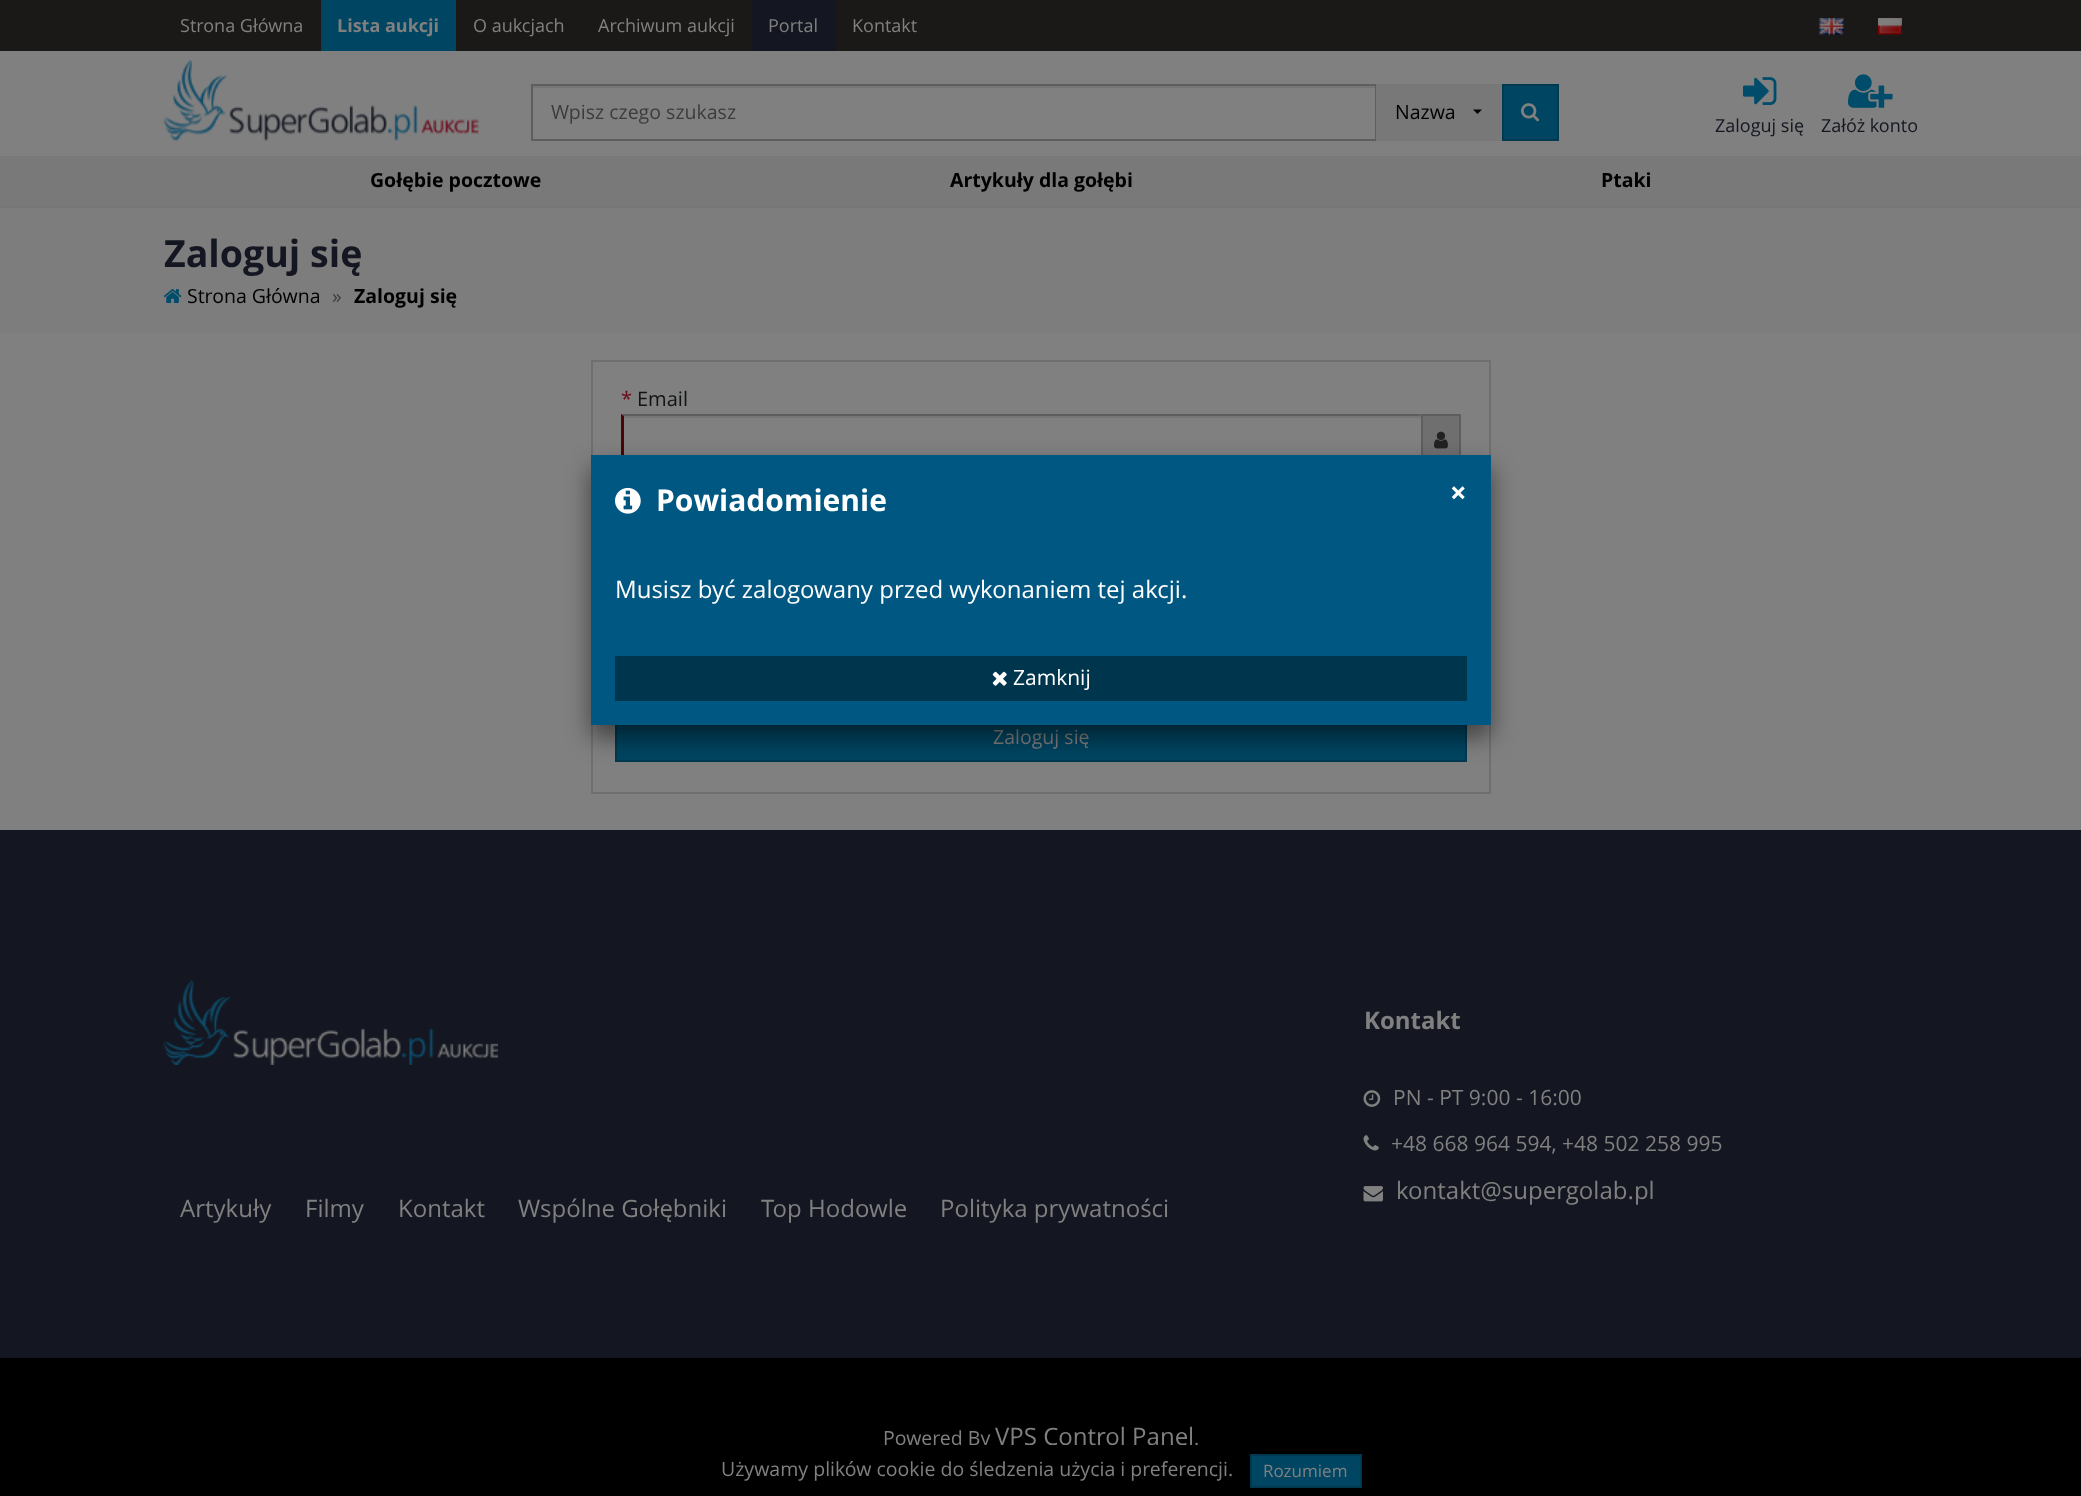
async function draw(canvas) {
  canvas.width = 2081
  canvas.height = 1496
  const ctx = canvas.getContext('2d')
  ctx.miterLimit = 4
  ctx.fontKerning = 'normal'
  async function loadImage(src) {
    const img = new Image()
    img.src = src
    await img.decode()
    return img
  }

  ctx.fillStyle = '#808080'
  ctx.fillRect(0, 0, 2081, 1496)
  ctx.fillStyle = '#1b1918'
  ctx.fillRect(0, 0, 2081, 51)
  ctx.font = '18px Open Sans'
  ctx.fillStyle = '#808080'
  ctx.fillText('Strona Główna', 180, 32)
  ctx.fillStyle = '#004561'
  ctx.fillRect(321, 0, 135, 51)
  ctx.font = 'bold 18px Open Sans'
  ctx.fillStyle = '#808080'
  ctx.fillText('Lista aukcji', 337, 32)
  ctx.font = '18px Open Sans'
  ctx.fillText('O aukcjach', 473, 32)
  ctx.fillText('Archiwum aukcji', 598, 32)
  ctx.fillStyle = '#141721'
  ctx.fillRect(752, 0, 84, 51)
  ctx.fillStyle = '#808080'
  ctx.fillText('Portal', 768, 32)
  ctx.fillText('Kontakt', 852, 32)
  ctx.drawImage(await loadImage('image0.png'), 1819, 18, 25, 17)
  ctx.drawImage(await loadImage('image1.png'), 1878, 18, 24, 17)
  ctx.fillStyle = '#777'
  ctx.fillRect(0, 206, 2081, 2)
  ctx.drawImage(await loadImage('image2.png'), 163, 59, 316, 82)
  ctx.fillStyle = '#767676'
  ctx.fillRect(533, 86, 843, 2)
  ctx.strokeStyle = '#5e5e5e'
  ctx.lineWidth = 2
  ctx.strokeRect(532, 85, 844, 55)
  ctx.font = '19.5px Open Sans'
  ctx.fillStyle = '#3c3c3c'
  ctx.fillText('Wpisz czego szukasz', 551, 119)
  ctx.fillStyle = '#787878'
  ctx.fillRect(1376, 84, 126, 57)
  ctx.fillStyle = '#000'
  ctx.fillText('Nazwa', 1395, 119)
  ctx.beginPath()
  ctx.moveTo(1473, 109.5)
  ctx.lineTo(1482, 109.5)
  ctx.lineTo(1477.5, 114)
  ctx.closePath()
  ctx.fill()
  ctx.fillStyle = '#004561'
  ctx.beginPath()
  ctx.rect(1503, 85, 55, 55)
  ctx.fill()
  ctx.strokeStyle = '#003950'
  ctx.stroke()
  ctx.drawImage(await loadImage('image3.png'), 1521, 103, 19, 19)
  ctx.drawImage(await loadImage('image4.png'), 1743, 77, 34, 28)
  ctx.font = '18px Open Sans'
  ctx.fillStyle = '#141721'
  ctx.fillText('Zaloguj się', 1715, 132)
  ctx.drawImage(await loadImage('image5.png'), 1848, 74, 45, 34)
  ctx.fillText('Załóż konto', 1821, 132)
  ctx.fillStyle = '#797979'
  ctx.fillRect(0, 156, 2081, 50)
  ctx.font = 'bold 19.5px Open Sans'
  ctx.fillStyle = '#000'
  ctx.fillText('Gołębie pocztowe', 370, 187)
  ctx.fillText('Artykuły dla gołębi', 950, 187)
  ctx.fillText('Ptaki', 1601, 187)
  ctx.fillStyle = '#7d7d7d'
  ctx.fillRect(0, 208, 2081, 125)
  ctx.font = 'bold 37.5px Open Sans'
  ctx.fillStyle = '#141721'
  ctx.fillText('Zaloguj się', 164, 267)
  ctx.drawImage(await loadImage('image6.png'), 163, 289, 19, 14)
  ctx.font = '19.5px Open Sans'
  ctx.fillStyle = '#000'
  ctx.fillText('Strona Główna', 187, 303)
  ctx.fillStyle = '#3c3c3c'
  ctx.fillText('»', 332, 303)
  ctx.font = 'bold 19.5px Open Sans'
  ctx.fillStyle = '#000'
  ctx.fillText('Zaloguj się', 354, 303)
  ctx.strokeStyle = '#6f6f6f'
  ctx.strokeRect(592, 361, 898, 432)
  ctx.font = '20px Open Sans'
  ctx.fillStyle = '#6a0818'
  ctx.fillText('*', 621, 406)
  ctx.fillStyle = '#111315'
  ctx.fillText('Email', 637, 406)
  ctx.fillStyle = '#767676'
  ctx.fillRect(624, 416, 797, 2)
  ctx.fillStyle = '#6f6f6f'
  ctx.fillRect(1423, 416, 36, 39)
  ctx.strokeStyle = '#5e5e5e'
  ctx.strokeRect(1422, 415, 38, 51)
  ctx.fillStyle = '#5e5e5e'
  ctx.beginPath()
  ctx.moveTo(621, 414)
  ctx.lineTo(1422, 414)
  ctx.lineTo(1420, 416)
  ctx.lineTo(624, 416)
  ctx.closePath()
  ctx.fill()
  ctx.fillStyle = '#4b0504'
  ctx.beginPath()
  ctx.moveTo(621, 466)
  ctx.lineTo(621, 414)
  ctx.lineTo(624, 416)
  ctx.lineTo(624, 465)
  ctx.closePath()
  ctx.fill()
  ctx.drawImage(await loadImage('image7.png'), 1434, 431, 14, 18)
  ctx.fillStyle = '#004561'
  ctx.fillRect(617, 725, 848, 35)
  ctx.strokeStyle = '#003950'
  ctx.strokeRect(616, 714, 850, 47)
  ctx.font = '19.5px Open Sans'
  ctx.fillStyle = '#808080'
  ctx.fillText('Zaloguj się', 993, 744)
  ctx.fillStyle = '#141721'
  ctx.fillRect(0, 830, 2081, 528)
  ctx.font = 'bold 24px Open Sans'
  ctx.fillStyle = '#808080'
  ctx.fillText('Kontakt', 1364, 1029)
  ctx.drawImage(await loadImage('image8.png'), 1363, 1090, 18, 17)
  ctx.font = '21px Open Sans'
  ctx.fillText('PN - PT 9:00 - 16:00', 1393, 1105)
  ctx.drawImage(await loadImage('image9.png'), 1363, 1135, 16, 16)
  ctx.fillText('+48 668 964 594, +48 502 258 995', 1391, 1151)
  ctx.drawImage(await loadImage('image10.png'), 1363, 1186, 20, 16)
  ctx.font = '24px Open Sans'
  ctx.fillText('kontakt@supergolab.pl', 1396, 1199)
  ctx.drawImage(await loadImage('image11.png'), 163, 979, 335, 86)
  ctx.fillText('Artykuły', 180, 1217)
  ctx.fillText('Filmy', 305, 1217)
  ctx.fillText('Kontakt', 398, 1217)
  ctx.fillText('Wspólne Gołębniki', 518, 1217)
  ctx.fillText('Top Hodowle', 761, 1217)
  ctx.fillText('Polityka prywatności', 940, 1217)
  ctx.fillStyle = '#000'
  ctx.fillRect(0, 1358, 2081, 87)
  ctx.font = '19.5px Open Sans'
  ctx.fillStyle = '#808080'
  ctx.fillText('Powered By', 883, 1445)
  ctx.font = '24px Open Sans'
  ctx.fillText('VPS Control Panel', 995, 1445)
  ctx.font = '19.5px Open Sans'
  ctx.fillText('.', 1194, 1445)
  ctx.fillStyle = '#00000080'
  ctx.filter = 'blur(12px)'
  ctx.beginPath()
  ctx.rect(591, 467, 900, 270)
  ctx.fill()
  ctx.filter = 'none'
  ctx.fillStyle = '#005882'
  ctx.fillRect(591, 455, 900, 270)
  ctx.drawImage(await loadImage('image12.png'), 615, 487, 26, 27)
  ctx.font = 'bold 30px Open Sans'
  ctx.fillStyle = '#fff'
  ctx.fillText('Powiadomienie', 656, 511)
  ctx.font = 'bold 29px Open Sans'
  ctx.fillText('×', 1450, 503)
  ctx.font = '24px Open Sans'
  ctx.fillText('Musisz być zalogowany przed wykonaniem tej akcji.', 615, 598)
  ctx.fillStyle = '#00354e'
  ctx.fillRect(615, 656, 852, 45)
  ctx.drawImage(await loadImage('image13.png'), 992, 671, 15, 15)
  ctx.font = '21px Open Sans'
  ctx.fillStyle = '#fff'
  ctx.fillText('Zamknij', 1013, 685)
  ctx.fillStyle = '#000'
  ctx.fillRect(0, 1445, 2081, 51)
  ctx.font = '19.5px Open Sans'
  ctx.fillStyle = '#808080'
  ctx.fillText('Używamy plików cookie do śledzenia użycia i preferencji.', 721, 1476)
  ctx.fillStyle = '#004561'
  ctx.beginPath()
  ctx.rect(1251, 1455, 110, 32)
  ctx.fill()
  ctx.stroke()
  ctx.font = '17px Open Sans'
  ctx.fillStyle = '#808080'
  ctx.fillText('Rozumiem', 1263, 1477)
}

draw(document.querySelector('canvas'))
